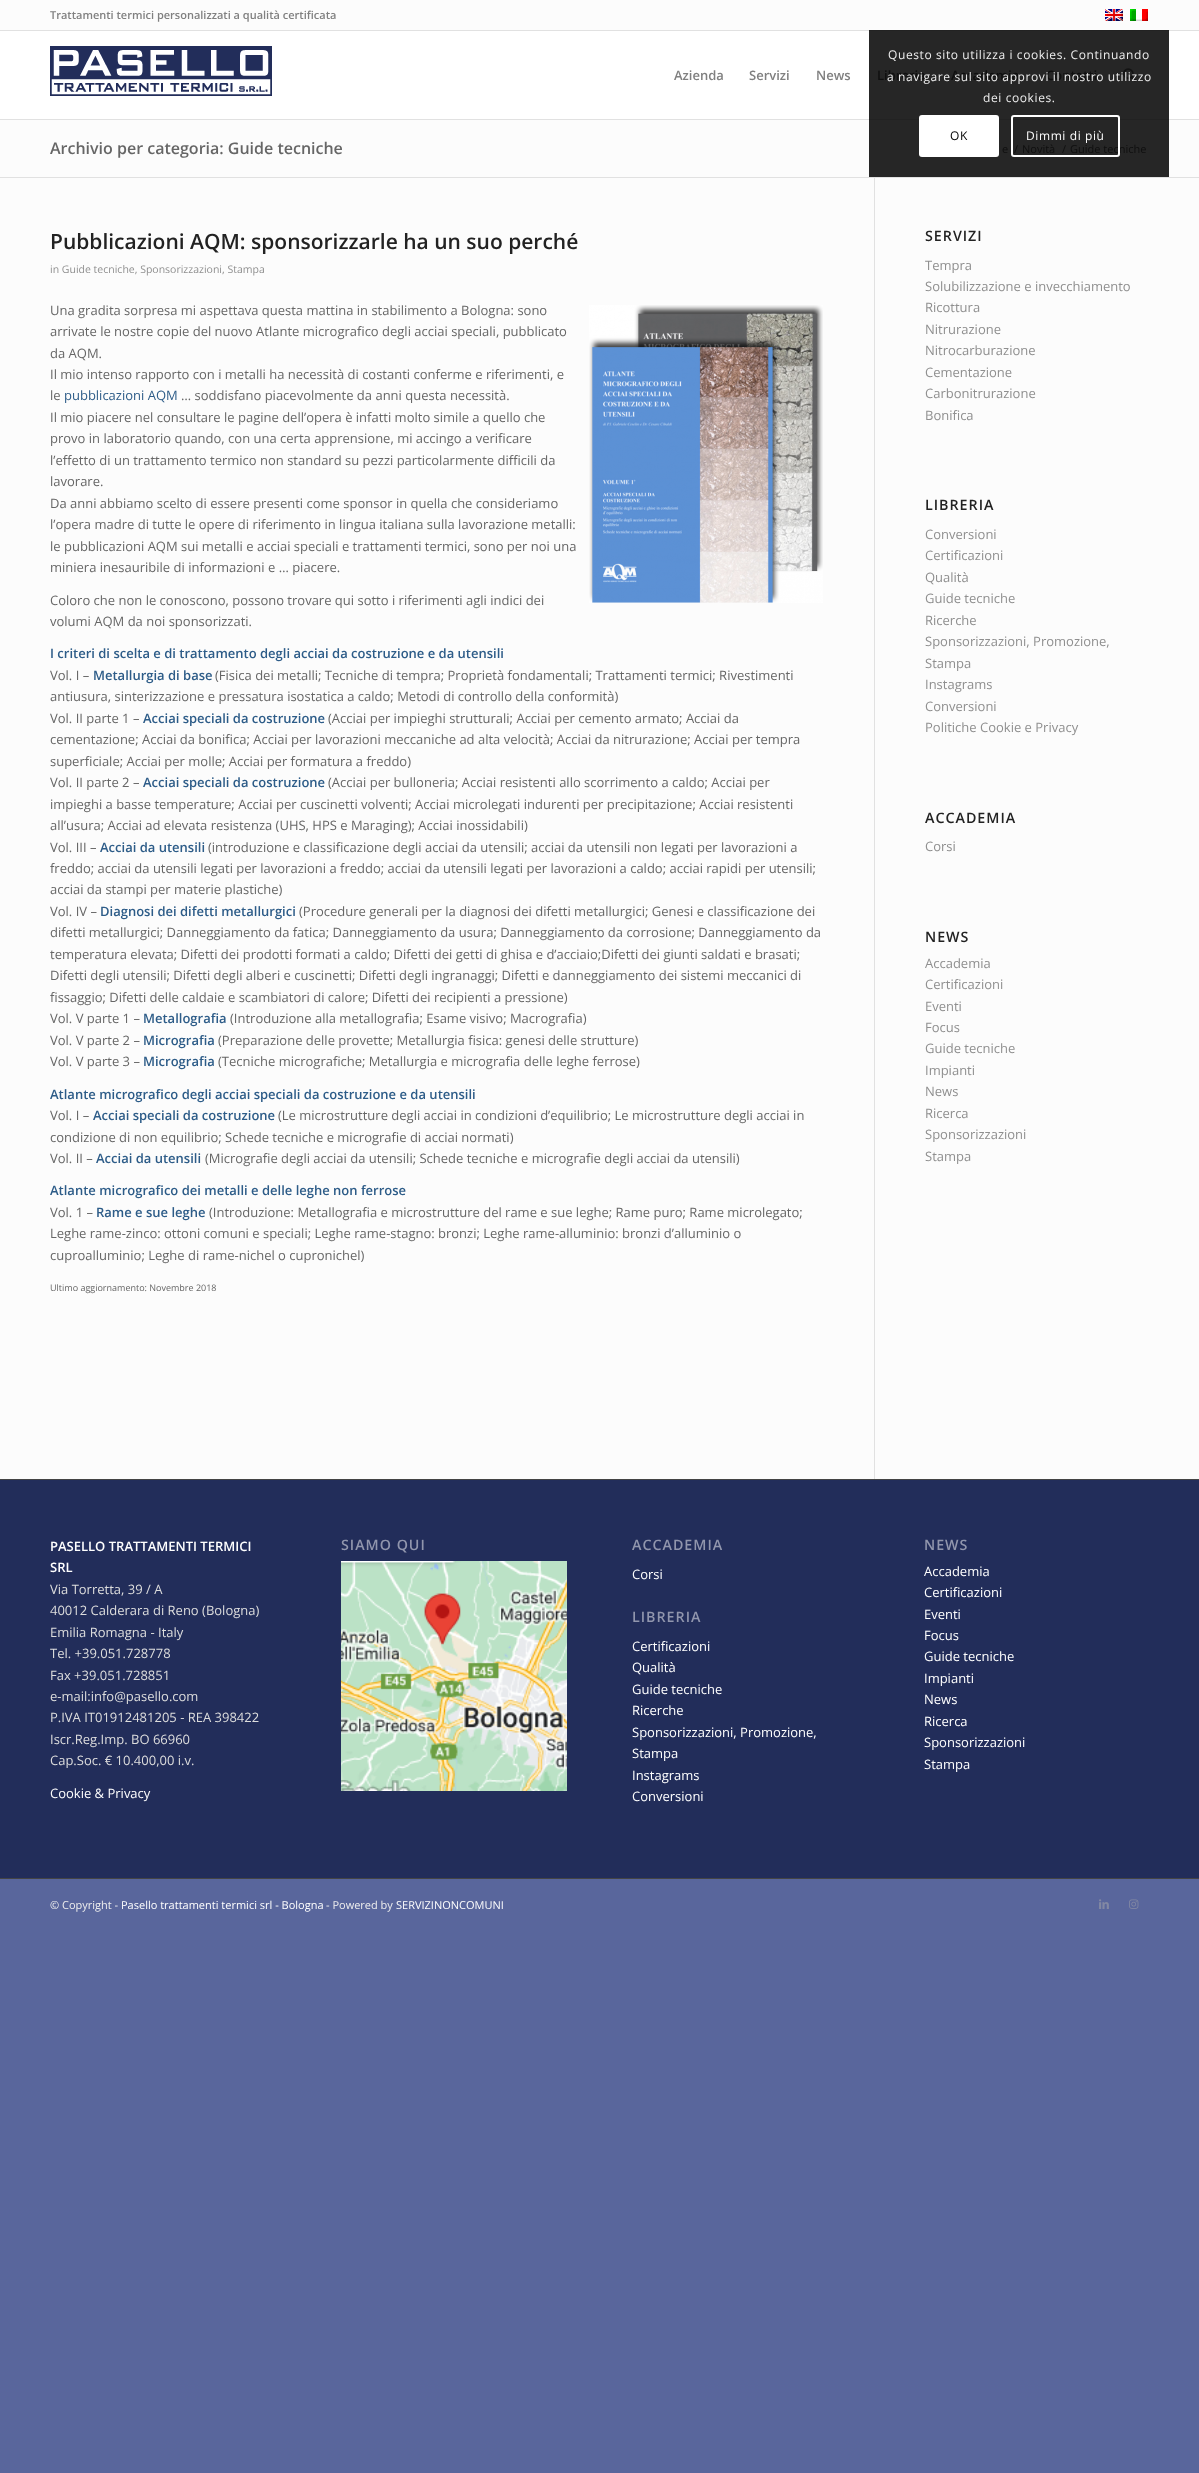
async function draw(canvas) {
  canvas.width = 1199
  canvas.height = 2473
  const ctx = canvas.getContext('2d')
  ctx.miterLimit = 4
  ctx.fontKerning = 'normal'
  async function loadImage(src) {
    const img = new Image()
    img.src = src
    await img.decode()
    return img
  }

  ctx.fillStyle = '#59669c'
  ctx.fillRect(0, 0, 1199, 2473)
  ctx.fillStyle = '#fcfcfc'
  ctx.fillRect(0, 0, 1199, 30)
  ctx.fillStyle = '#e1e1e1'
  ctx.fillRect(0, 30, 1199, 1)
  ctx.fillStyle = '#222'
  ctx.fillRect(869, 30, 300, 1)
  ctx.font = '600 11px Open Sans'
  ctx.fillStyle = '#808080'
  ctx.fillText('Trattamenti termici personalizzati a qualità certificata', 50, 19)
  ctx.drawImage(await loadImage('image0.png'), 1105, 9, 18, 12)
  ctx.drawImage(await loadImage('image1.png'), 1130, 9, 18, 12)
  ctx.fillStyle = '#e1e1e1'
  ctx.fillRect(0, 119, 1199, 1)
  ctx.fillStyle = '#222'
  ctx.fillRect(869, 119, 300, 1)
  ctx.fillStyle = '#fff'
  ctx.fillRect(0, 31, 1199, 88)
  ctx.drawImage(await loadImage('image2.png'), 50, 46, 222, 50)
  ctx.font = '600 13px Open Sans'
  ctx.fillStyle = '#808080'
  ctx.fillText('Azienda', 674, 80)
  ctx.fillText('Servizi', 749, 80)
  ctx.fillText('News', 816, 80)
  ctx.fillStyle = '#262626'
  ctx.fillRect(869, 31, 300, 88)
  ctx.fillStyle = '#0f0f0f'
  ctx.fillText('Libreria', 877, 80)
  ctx.fillText('Accademia', 951, 80)
  ctx.fillText('Contatti', 1046, 80)
  ctx.drawImage(await loadImage('image3.png'), 1123, 68, 14, 14)
  ctx.fillStyle = '#fcfcfc'
  ctx.fillRect(0, 120, 1199, 57)
  ctx.fillStyle = '#262626'
  ctx.fillRect(869, 120, 300, 57)
  ctx.font = '600 16px Open Sans'
  ctx.fillStyle = '#666'
  ctx.fillText('Archivio per categoria: Guide tecniche', 50, 154)
  ctx.font = '11px Open Sans'
  ctx.fillStyle = '#0f0f0f'
  ctx.fillText('e', 1002, 153)
  ctx.fillText('/', 1014, 153)
  ctx.fillText('Novità', 1022, 153)
  ctx.fillText('/', 1062, 153)
  ctx.fillText('Guide tecniche', 1070, 153)
  ctx.fillStyle = '#fcfcfc'
  ctx.fillRect(0, 178, 1199, 1301)
  ctx.fillStyle = '#e1e1e1'
  ctx.fillRect(0, 177, 1199, 1)
  ctx.fillRect(874, 178, 1, 1301)
  ctx.font = '600 21px Open Sans'
  ctx.fillStyle = '#222'
  ctx.fillText('Pubblicazioni AQM: sponsorizzarle ha un suo perché', 50, 249)
  ctx.font = '10.5px Open Sans'
  ctx.fillStyle = '#8f8f8f'
  ctx.fillText('in Guide tecniche, Sponsorizzazioni, Stampa', 50, 273)
  ctx.font = '13px Open Sans'
  ctx.fillStyle = '#666'
  ctx.fillText('Una gradita sorpresa mi aspettava questa mattina in stabilimento a Bologna: sono', 50, 315)
  ctx.drawImage(await loadImage('image4.png'), 589, 305, 234, 298)
  ctx.fillText('arrivate le nostre copie del nuovo Atlante micrografico degli acciai speciali, pubblicato', 50, 336)
  ctx.fillText('da AQM.', 50, 358)
  ctx.fillText('Il mio intenso rapporto con i metalli ha necessità di costanti conferme e riferimenti, e', 50, 379)
  ctx.fillText('le', 50, 400)
  ctx.fillStyle = '#2d5c88'
  ctx.fillText('pubblicazioni AQM', 64, 400)
  ctx.fillStyle = '#666'
  ctx.fillText('… soddisfano piacevolmente da anni questa necessità.', 181, 400)
  ctx.fillText('Il mio piacere nel consultare le pagine dell’opera è infatti molto simile a quello che', 50, 422)
  ctx.fillText('provo in laboratorio quando, con una certa apprensione, mi accingo a verificare', 50, 443)
  ctx.fillText('l’effetto di un trattamento termico non standard su pezzi particolarmente difficili da', 50, 465)
  ctx.fillText('lavorare.', 50, 486)
  ctx.fillText('Da anni abbiamo scelto di essere presenti come sponsor in quella che consideriamo', 50, 508)
  ctx.fillText('l’opera madre di tutte le opere di riferimento in lingua italiana sulla lavorazione metalli:', 50, 529)
  ctx.fillText('le pubblicazioni AQM sui metalli e acciai speciali e trattamenti termici, sono per noi una', 50, 551)
  ctx.fillText('miniera inesauribile di informazioni e … piacere.', 50, 572)
  ctx.fillText('Coloro che non le conoscono, possono trovare qui sotto i riferimenti agli indici dei', 50, 605)
  ctx.fillText('volumi AQM da noi sponsorizzati.', 50, 626)
  ctx.font = '600 13px Open Sans'
  ctx.fillStyle = '#2d5c88'
  ctx.fillText('I criteri di scelta e di trattamento degli acciai da costruzione e da utensili', 50, 658)
  ctx.font = '13px Open Sans'
  ctx.fillStyle = '#666'
  ctx.fillText('Vol. I –', 50, 680)
  ctx.font = '600 13px Open Sans'
  ctx.fillStyle = '#2d5c88'
  ctx.fillText('Metallurgia di base', 93, 680)
  ctx.font = '13px Open Sans'
  ctx.fillStyle = '#666'
  ctx.fillText('(Fisica dei metalli; Tecniche di tempra; Proprietà fondamentali; Trattamenti termici; Rivestimenti', 215, 680)
  ctx.fillText('antiusura, sinterizzazione e pressatura isostatica a caldo; Metodi di controllo della conformità)', 50, 701)
  ctx.fillText('Vol. II parte 1 –', 50, 723)
  ctx.font = '600 13px Open Sans'
  ctx.fillStyle = '#2d5c88'
  ctx.fillText('Acciai speciali da costruzione', 143, 723)
  ctx.font = '13px Open Sans'
  ctx.fillStyle = '#666'
  ctx.fillText('(Acciai per impieghi strutturali; Acciai per cemento armato; Acciai da', 328, 723)
  ctx.fillText('cementazione; Acciai da bonifica; Acciai per lavorazioni meccaniche ad alta velocità; Acciai da nitrurazione; Acciai per tempra', 50, 744)
  ctx.fillText('superficiale; Acciai per molle; Acciai per formatura a freddo)', 50, 766)
  ctx.fillText('Vol. II parte 2 –', 50, 787)
  ctx.font = '600 13px Open Sans'
  ctx.fillStyle = '#2d5c88'
  ctx.fillText('Acciai speciali da costruzione', 143, 787)
  ctx.font = '13px Open Sans'
  ctx.fillStyle = '#666'
  ctx.fillText('(Acciai per bulloneria; Acciai resistenti allo scorrimento a caldo; Acciai per', 328, 787)
  ctx.fillText('impieghi a basse temperature; Acciai per cuscinetti volventi; Acciai microlegati indurenti per precipitazione; Acciai resistenti', 50, 809)
  ctx.fillText('all’usura; Acciai ad elevata resistenza (UHS, HPS e Maraging); Acciai inossidabili)', 50, 830)
  ctx.fillText('Vol. III –', 50, 852)
  ctx.font = '600 13px Open Sans'
  ctx.fillStyle = '#2d5c88'
  ctx.fillText('Acciai da utensili', 100, 852)
  ctx.font = '13px Open Sans'
  ctx.fillStyle = '#666'
  ctx.fillText('(introduzione e classificazione degli acciai da utensili; acciai da utensili non legati per lavorazioni a', 208, 852)
  ctx.fillText('freddo; acciai da utensili legati per lavorazioni a freddo; acciai da utensili legati per lavorazioni a caldo; acciai rapidi per utensili;', 50, 873)
  ctx.fillText('acciai da stampi per materie plastiche)', 50, 894)
  ctx.fillText('Vol. IV –', 50, 916)
  ctx.font = '600 13px Open Sans'
  ctx.fillStyle = '#2d5c88'
  ctx.fillText('Diagnosi dei difetti metallurgici', 100, 916)
  ctx.font = '13px Open Sans'
  ctx.fillStyle = '#666'
  ctx.fillText('(Procedure generali per la diagnosi dei difetti metallurgici; Genesi e classificazione dei', 299, 916)
  ctx.fillText('difetti metallurgici; Danneggiamento da fatica; Danneggiamento da usura; Danneggiamento da corrosione; Danneggiamento da', 50, 937)
  ctx.fillText('temperatura elevata; Difetti dei prodotti formati a caldo; Difetti dei getti di ghisa e d’acciaio;Difetti dei giunti saldati e brasati;', 50, 959)
  ctx.fillText('Difetti degli utensili; Difetti degli alberi e cuscinetti; Difetti degli ingranaggi; Difetti e danneggiamento dei sistemi meccanici di', 50, 980)
  ctx.fillText('fissaggio; Difetti delle caldaie e scambiatori di calore; Difetti dei recipienti a pressione)', 50, 1002)
  ctx.fillText('Vol. V parte 1 –', 50, 1023)
  ctx.font = '600 13px Open Sans'
  ctx.fillStyle = '#2d5c88'
  ctx.fillText('Metallografia', 143, 1023)
  ctx.font = '13px Open Sans'
  ctx.fillStyle = '#666'
  ctx.fillText('(Introduzione alla metallografia; Esame visivo; Macrografia)', 230, 1023)
  ctx.fillText('Vol. V parte 2 –', 50, 1045)
  ctx.font = '600 13px Open Sans'
  ctx.fillStyle = '#2d5c88'
  ctx.fillText('Micrografia', 143, 1045)
  ctx.font = '13px Open Sans'
  ctx.fillStyle = '#666'
  ctx.fillText('(Preparazione delle provette; Metallurgia fisica: genesi delle strutture)', 218, 1045)
  ctx.fillText('Vol. V parte 3 –', 50, 1066)
  ctx.font = '600 13px Open Sans'
  ctx.fillStyle = '#2d5c88'
  ctx.fillText('Micrografia', 143, 1066)
  ctx.font = '13px Open Sans'
  ctx.fillStyle = '#666'
  ctx.fillText('(Tecniche micrografiche; Metallurgia e micrografia delle leghe ferrose)', 218, 1066)
  ctx.font = '600 13px Open Sans'
  ctx.fillStyle = '#2d5c88'
  ctx.fillText('Atlante micrografico degli acciai speciali da costruzione e da utensili', 50, 1099)
  ctx.font = '13px Open Sans'
  ctx.fillStyle = '#666'
  ctx.fillText('Vol. I –', 50, 1120)
  ctx.font = '600 13px Open Sans'
  ctx.fillStyle = '#2d5c88'
  ctx.fillText('Acciai speciali da costruzione', 93, 1120)
  ctx.font = '13px Open Sans'
  ctx.fillStyle = '#666'
  ctx.fillText('(Le microstrutture degli acciai in condizioni d’equilibrio; Le microstrutture degli acciai in', 278, 1120)
  ctx.fillText('condizione di non equilibrio; Schede tecniche e micrografie di acciai normati)', 50, 1142)
  ctx.fillText('Vol. II –', 50, 1163)
  ctx.font = '600 13px Open Sans'
  ctx.fillStyle = '#2d5c88'
  ctx.fillText('Acciai da utensili', 96, 1163)
  ctx.font = '13px Open Sans'
  ctx.fillStyle = '#666'
  ctx.fillText('(Micrografie degli acciai da utensili; Schede tecniche e micrografie degli acciai da utensili)', 205, 1163)
  ctx.font = '600 13px Open Sans'
  ctx.fillStyle = '#2d5c88'
  ctx.fillText('Atlante micrografico dei metalli e delle leghe non ferrose', 50, 1195)
  ctx.font = '13px Open Sans'
  ctx.fillStyle = '#666'
  ctx.fillText('Vol. 1 –', 50, 1217)
  ctx.font = '600 13px Open Sans'
  ctx.fillStyle = '#2d5c88'
  ctx.fillText('Rame e sue leghe', 96, 1217)
  ctx.font = '13px Open Sans'
  ctx.fillStyle = '#666'
  ctx.fillText('(Introduzione: Metallografia e microstrutture del rame e sue leghe; Rame puro; Rame microlegato;', 209, 1217)
  ctx.fillText('Leghe rame-zinco: ottoni comuni e speciali; Leghe rame-stagno: bronzi; Leghe rame-alluminio: bronzi d’alluminio o', 50, 1238)
  ctx.fillText('cuproalluminio; Leghe di rame-nichel o cupronichel)', 50, 1260)
  ctx.font = '9px Open Sans'
  ctx.fillText('Ultimo aggiornamento: Novembre 2018', 50, 1291)
  ctx.letterSpacing = '1px'
  ctx.font = '600 14.25px Open Sans'
  ctx.fillStyle = '#222'
  ctx.fillText('SERVIZI', 925, 241)
  ctx.letterSpacing = '0px'
  ctx.font = '13px Open Sans'
  ctx.fillStyle = '#8f8f8f'
  ctx.fillText('Tempra', 925, 270)
  ctx.fillText('Solubilizzazione e invecchiamento', 925, 291)
  ctx.fillText('Ricottura', 925, 312)
  ctx.fillText('Nitrurazione', 925, 334)
  ctx.fillText('Nitrocarburazione', 925, 355)
  ctx.fillText('Cementazione', 925, 377)
  ctx.fillText('Carbonitrurazione', 925, 398)
  ctx.fillText('Bonifica', 925, 420)
  ctx.letterSpacing = '1px'
  ctx.font = '600 14.25px Open Sans'
  ctx.fillStyle = '#222'
  ctx.fillText('LIBRERIA', 925, 510)
  ctx.letterSpacing = '0px'
  ctx.font = '13px Open Sans'
  ctx.fillStyle = '#8f8f8f'
  ctx.fillText('Conversioni', 925, 539)
  ctx.fillText('Certificazioni', 925, 560)
  ctx.fillText('Qualità', 925, 582)
  ctx.fillText('Guide tecniche', 925, 603)
  ctx.fillText('Ricerche', 925, 625)
  ctx.fillText('Sponsorizzazioni, Promozione,', 925, 646)
  ctx.fillText('Stampa', 925, 668)
  ctx.fillText('Instagrams', 925, 689)
  ctx.fillText('Conversioni', 925, 711)
  ctx.fillText('Politiche Cookie e Privacy', 925, 732)
  ctx.letterSpacing = '1px'
  ctx.font = '600 14.25px Open Sans'
  ctx.fillStyle = '#222'
  ctx.fillText('ACCADEMIA', 925, 823)
  ctx.letterSpacing = '0px'
  ctx.font = '13px Open Sans'
  ctx.fillStyle = '#8f8f8f'
  ctx.fillText('Corsi', 925, 851)
  ctx.letterSpacing = '1px'
  ctx.font = '600 14.25px Open Sans'
  ctx.fillStyle = '#222'
  ctx.fillText('NEWS', 925, 942)
  ctx.letterSpacing = '0px'
  ctx.font = '13px Open Sans'
  ctx.fillStyle = '#8f8f8f'
  ctx.fillText('Accademia', 925, 968)
  ctx.fillText('Certificazioni', 925, 989)
  ctx.fillText('Eventi', 925, 1011)
  ctx.fillText('Focus', 925, 1032)
  ctx.fillText('Guide tecniche', 925, 1053)
  ctx.fillText('Impianti', 925, 1075)
  ctx.fillText('News', 925, 1096)
  ctx.fillText('Ricerca', 925, 1118)
  ctx.fillText('Sponsorizzazioni', 925, 1139)
  ctx.fillText('Stampa', 925, 1161)
  ctx.fillStyle = '#222d5a'
  ctx.fillRect(0, 1480, 1199, 398)
  ctx.fillStyle = '#444'
  ctx.fillRect(0, 1479, 1199, 1)
  ctx.font = '600 13px Open Sans'
  ctx.fillStyle = '#fff'
  ctx.fillText('PASELLO TRATTAMENTI TERMICI', 50, 1551)
  ctx.fillText('SRL', 50, 1572)
  ctx.font = '13px Open Sans'
  ctx.fillStyle = '#ddd'
  ctx.fillText('Via Torretta, 39 / A', 50, 1594)
  ctx.fillText('40012 Calderara di Reno (Bologna)', 50, 1615)
  ctx.fillText('Emilia Romagna - Italy', 50, 1637)
  ctx.fillText('Tel. +39.051.728778', 50, 1658)
  ctx.fillText('Fax +39.051.728851', 50, 1680)
  ctx.fillText('e-mail:info@pasello.com', 50, 1701)
  ctx.fillText('P.IVA IT01912481205 - REA 398422', 50, 1722)
  ctx.fillText('Iscr.Reg.Imp. BO 66960', 50, 1744)
  ctx.fillText('Cap.Soc. € 10.400,00 i.v.', 50, 1765)
  ctx.fillStyle = '#fff'
  ctx.fillText('Cookie & Privacy', 50, 1798)
  ctx.letterSpacing = '1px'
  ctx.font = '600 14.25px Open Sans'
  ctx.fillStyle = '#9196ad'
  ctx.fillText('SIAMO QUI', 341, 1550)
  ctx.drawImage(await loadImage('image5.png'), 341, 1561, 226, 230)
  ctx.fillText('ACCADEMIA', 632, 1550)
  ctx.letterSpacing = '0px'
  ctx.font = '13px Open Sans'
  ctx.fillStyle = '#fff'
  ctx.fillText('Corsi', 632, 1579)
  ctx.letterSpacing = '1px'
  ctx.font = '600 14.25px Open Sans'
  ctx.fillStyle = '#9196ad'
  ctx.fillText('LIBRERIA', 632, 1622)
  ctx.letterSpacing = '0px'
  ctx.font = '13px Open Sans'
  ctx.fillStyle = '#fff'
  ctx.fillText('Certificazioni', 632, 1651)
  ctx.fillText('Qualità', 632, 1672)
  ctx.fillText('Guide tecniche', 632, 1694)
  ctx.fillText('Ricerche', 632, 1715)
  ctx.fillText('Sponsorizzazioni, Promozione,', 632, 1737)
  ctx.fillText('Stampa', 632, 1758)
  ctx.fillText('Instagrams', 632, 1780)
  ctx.fillText('Conversioni', 632, 1801)
  ctx.letterSpacing = '1px'
  ctx.font = '600 14.25px Open Sans'
  ctx.fillStyle = '#9196ad'
  ctx.fillText('NEWS', 924, 1550)
  ctx.letterSpacing = '0px'
  ctx.font = '13px Open Sans'
  ctx.fillStyle = '#fff'
  ctx.fillText('Accademia', 924, 1576)
  ctx.fillText('Certificazioni', 924, 1597)
  ctx.fillText('Eventi', 924, 1619)
  ctx.fillText('Focus', 924, 1640)
  ctx.fillText('Guide tecniche', 924, 1661)
  ctx.fillText('Impianti', 924, 1683)
  ctx.fillText('News', 924, 1704)
  ctx.fillText('Ricerca', 924, 1726)
  ctx.fillText('Sponsorizzazioni', 924, 1747)
  ctx.fillText('Stampa', 924, 1769)
  ctx.fillStyle = '#444'
  ctx.fillRect(0, 1878, 1199, 1)
  ctx.font = '11px Open Sans'
  ctx.fillStyle = '#eee'
  ctx.fillText('© Copyright -', 50, 1909)
  ctx.fillStyle = '#fff'
  ctx.fillText('Pasello trattamenti termici srl - Bologna', 121, 1909)
  ctx.fillStyle = '#eee'
  ctx.fillText('- Powered by', 326, 1909)
  ctx.fillStyle = '#fff'
  ctx.fillText('SERVIZINONCOMUNI', 396, 1909)
  ctx.drawImage(await loadImage('image6.png'), 1099, 1899, 10, 10)
  ctx.drawImage(await loadImage('image7.png'), 1129, 1899, 10, 10)
  ctx.letterSpacing = '0.6px'
  ctx.font = '12px Open Sans'
  ctx.fillStyle = '#eee'
  ctx.fillText('Questo sito utilizza i cookies. Continuando', 888, 59)
  ctx.fillText('a navigare sul sito approvi il nostro utilizzo', 887, 81)
  ctx.fillText('dei cookies.', 983, 102)
  ctx.fillStyle = '#fff'
  ctx.beginPath()
  ctx.roundRect(919, 115, 80, 42, 3)
  ctx.fill()
  ctx.fillStyle = '#000'
  ctx.fillText('OK', 950, 140)
  ctx.beginPath()
  ctx.roundRect(1012, 116, 107, 40, 2)
  ctx.strokeStyle = '#fff'
  ctx.lineWidth = 2
  ctx.stroke()
  ctx.fillStyle = '#fff'
  ctx.fillText('Dimmi di più', 1026, 140)
}

draw(document.querySelector('canvas'))
